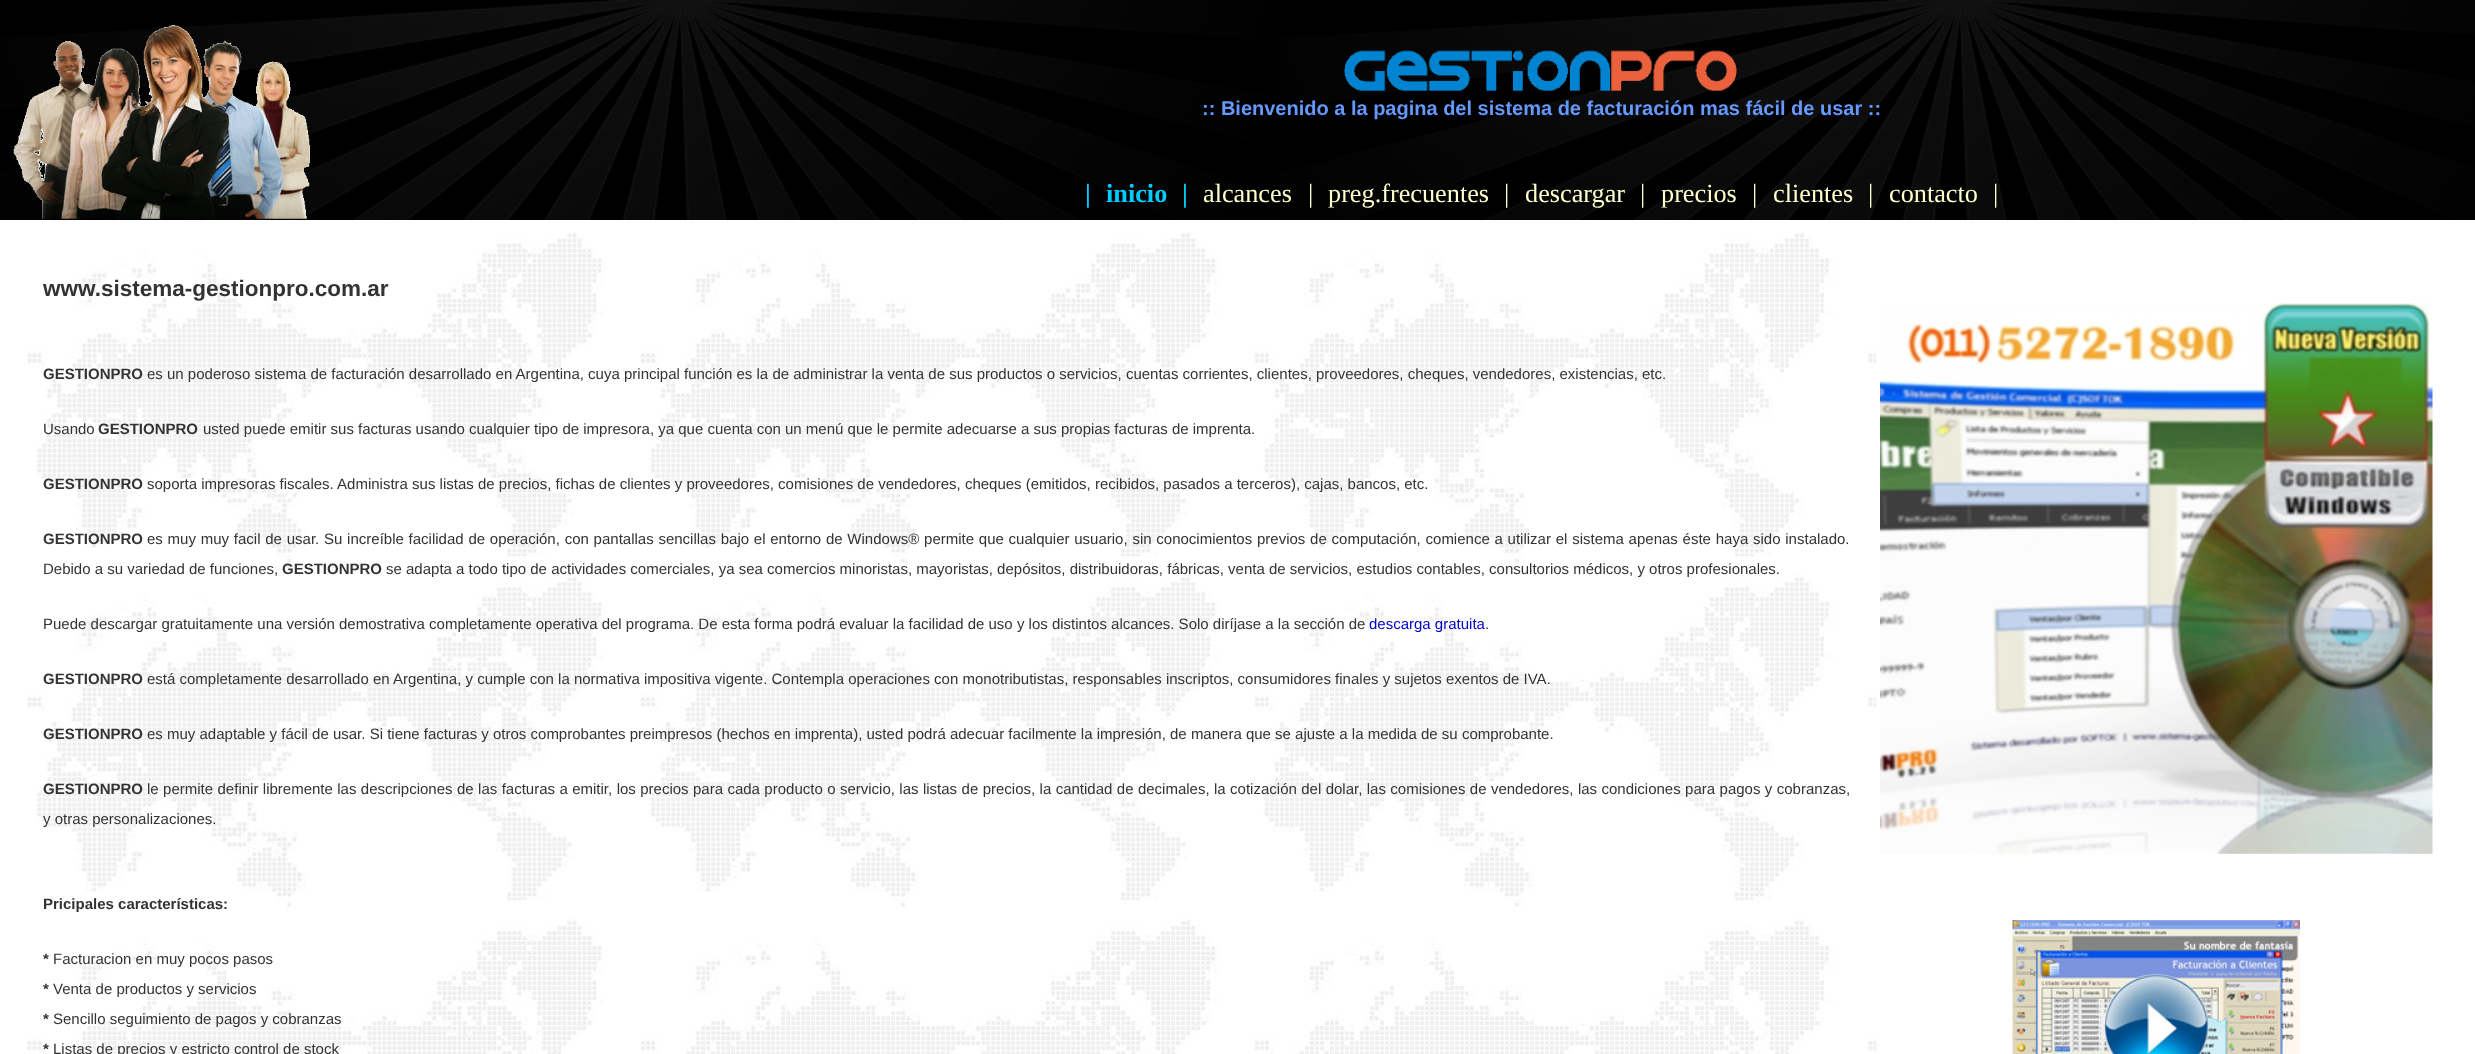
async function draw(canvas) {
  canvas.width = 2475
  canvas.height = 1054
  const ctx = canvas.getContext('2d')
  ctx.miterLimit = 4
  ctx.fontKerning = 'normal'
  async function loadImage(src) {
    const img = new Image()
    img.src = src
    await img.decode()
    return img
  }

  ctx.fillStyle = '#fff'
  ctx.fillRect(0, 0, 2475, 1054)
  ctx.drawImage(await loadImage('image0.png'), 0, 0, 2475, 220)
  ctx.drawImage(await loadImage('image1.png'), 13, 25, 297, 194)
  ctx.drawImage(await loadImage('image2.png'), 1343, 50, 394, 41)
  ctx.font = 'bold 20px Liberation Sans'
  ctx.fillStyle = '#69f'
  ctx.fillText(':: Bienvenido a la pagina del sistema de facturación mas fácil de usar ::', 1202, 115)
  ctx.font = 'bold 26.25px Liberation Serif'
  ctx.fillStyle = '#0cf'
  ctx.fillText('|', 1085, 202)
  ctx.fillText('inicio', 1106, 202)
  ctx.fillText('|', 1182, 202)
  ctx.font = '26.25px Liberation Serif'
  ctx.fillStyle = '#ffc'
  ctx.fillText('alcances', 1203, 202)
  ctx.fillText('|', 1308, 202)
  ctx.fillText('preg.frecuentes', 1328, 202)
  ctx.fillText('|', 1504, 202)
  ctx.fillText('descargar', 1525, 202)
  ctx.fillText('|', 1640, 202)
  ctx.fillText('precios', 1661, 202)
  ctx.fillText('|', 1752, 202)
  ctx.fillText('clientes', 1773, 202)
  ctx.fillText('|', 1868, 202)
  ctx.fillText('contacto', 1889, 202)
  ctx.fillText('|', 1993, 202)
  ctx.drawImage(await loadImage('image3.png'), 27, 232, 1850, 822)
  ctx.font = 'bold 22.5px Liberation Sans'
  ctx.fillStyle = '#333'
  ctx.fillText('www.sistema-gestionpro.com.ar', 43, 296)
  ctx.font = 'bold 15px Liberation Sans'
  ctx.fillText('GESTIONPRO', 43, 379)
  ctx.font = '15px Liberation Sans'
  ctx.fillText('es un poderoso sistema de facturación desarrollado en Argentina, cuya principal función es la de administrar la venta de sus productos o servicios, cuentas corrientes, clientes, proveedores, cheques, vendedores, existencias, etc.', 147, 379)
  ctx.fillText('Usando', 43, 434)
  ctx.font = 'bold 15px Liberation Sans'
  ctx.fillText('GESTIONPRO', 98, 434)
  ctx.font = '15px Liberation Sans'
  ctx.fillText('usted puede emitir sus facturas usando cualquier tipo de impresora, ya que cuenta con un menú que le permite adecuarse a sus propias facturas de imprenta.', 203, 434)
  ctx.font = 'bold 15px Liberation Sans'
  ctx.fillText('GESTIONPRO', 43, 489)
  ctx.font = '15px Liberation Sans'
  ctx.fillText('soporta impresoras fiscales. Administra sus listas de precios, fichas de clientes y proveedores, comisiones de vendedores, cheques (emitidos, recibidos, pasados a terceros), cajas, bancos, etc.', 147, 489)
  ctx.font = 'bold 15px Liberation Sans'
  ctx.fillText('GESTIONPRO', 43, 544)
  ctx.wordSpacing = '0.6px'
  ctx.font = '15px Liberation Sans'
  ctx.fillText('es muy muy facil de usar. Su increíble facilidad de operación, con pantallas sencillas bajo el entorno de Windows® permite que cualquier usuario, sin conocimientos previos de computación, comience a utilizar el sistema apenas éste haya sido instalado.', 147, 544)
  ctx.wordSpacing = '0px'
  ctx.fillText('Debido a su variedad de funciones,', 43, 574)
  ctx.font = 'bold 15px Liberation Sans'
  ctx.fillText('GESTIONPRO', 282, 574)
  ctx.font = '15px Liberation Sans'
  ctx.fillText('se adapta a todo tipo de actividades comerciales, ya sea comercios minoristas, mayoristas, depósitos, distribuidoras, fábricas, venta de servicios, estudios contables, consultorios médicos, y otros profesionales.', 386, 574)
  ctx.fillText('Puede descargar gratuitamente una versión demostrativa completamente operativa del programa. De esta forma podrá evaluar la facilidad de uso y los distintos alcances. Solo diríjase a la sección de', 43, 629)
  ctx.fillStyle = '#00c'
  ctx.fillText('descarga gratuita', 1369, 629)
  ctx.fillStyle = '#333'
  ctx.fillText('.', 1485, 629)
  ctx.font = 'bold 15px Liberation Sans'
  ctx.fillText('GESTIONPRO', 43, 684)
  ctx.font = '15px Liberation Sans'
  ctx.fillText('está completamente desarrollado en Argentina, y cumple con la normativa impositiva vigente. Contempla operaciones con monotributistas, responsables inscriptos, consumidores finales y sujetos exentos de IVA.', 147, 684)
  ctx.font = 'bold 15px Liberation Sans'
  ctx.fillText('GESTIONPRO', 43, 739)
  ctx.font = '15px Liberation Sans'
  ctx.fillText('es muy adaptable y fácil de usar. Si tiene facturas y otros comprobantes preimpresos (hechos en imprenta), usted podrá adecuar facilmente la impresión, de manera que se ajuste a la medida de su comprobante.', 147, 739)
  ctx.font = 'bold 15px Liberation Sans'
  ctx.fillText('GESTIONPRO', 43, 794)
  ctx.wordSpacing = '0.25px'
  ctx.font = '15px Liberation Sans'
  ctx.fillText('le permite definir libremente las descripciones de las facturas a emitir, los precios para cada producto o servicio, las listas de precios, la cantidad de decimales, la cotización del dolar, las comisiones de vendedores, las condiciones para pagos y cobranzas,', 147, 794)
  ctx.wordSpacing = '0px'
  ctx.fillText('y otras personalizaciones.', 43, 824)
  ctx.font = 'bold 15px Liberation Sans'
  ctx.fillText('Pricipales características:', 43, 909)
  ctx.fillText('*', 43, 964)
  ctx.font = '15px Liberation Sans'
  ctx.fillText('Facturacion en muy pocos pasos', 53, 964)
  ctx.font = 'bold 15px Liberation Sans'
  ctx.fillText('*', 43, 994)
  ctx.font = '15px Liberation Sans'
  ctx.fillText('Venta de productos y servicios', 53, 994)
  ctx.font = 'bold 15px Liberation Sans'
  ctx.fillText('*', 43, 1024)
  ctx.font = '15px Liberation Sans'
  ctx.fillText('Sencillo seguimiento de pagos y cobranzas', 53, 1024)
  ctx.font = 'bold 15px Liberation Sans'
  ctx.fillText('*', 43, 1054)
  ctx.font = '15px Liberation Sans'
  ctx.fillText('Listas de precios y estricto control de stock', 53, 1054)
  ctx.drawImage(await loadImage('image4.png'), 1880, 303, 553, 551)
  ctx.drawImage(await loadImage('image5.png'), 2012, 920, 288, 134)
}

draw(document.querySelector('canvas'))
